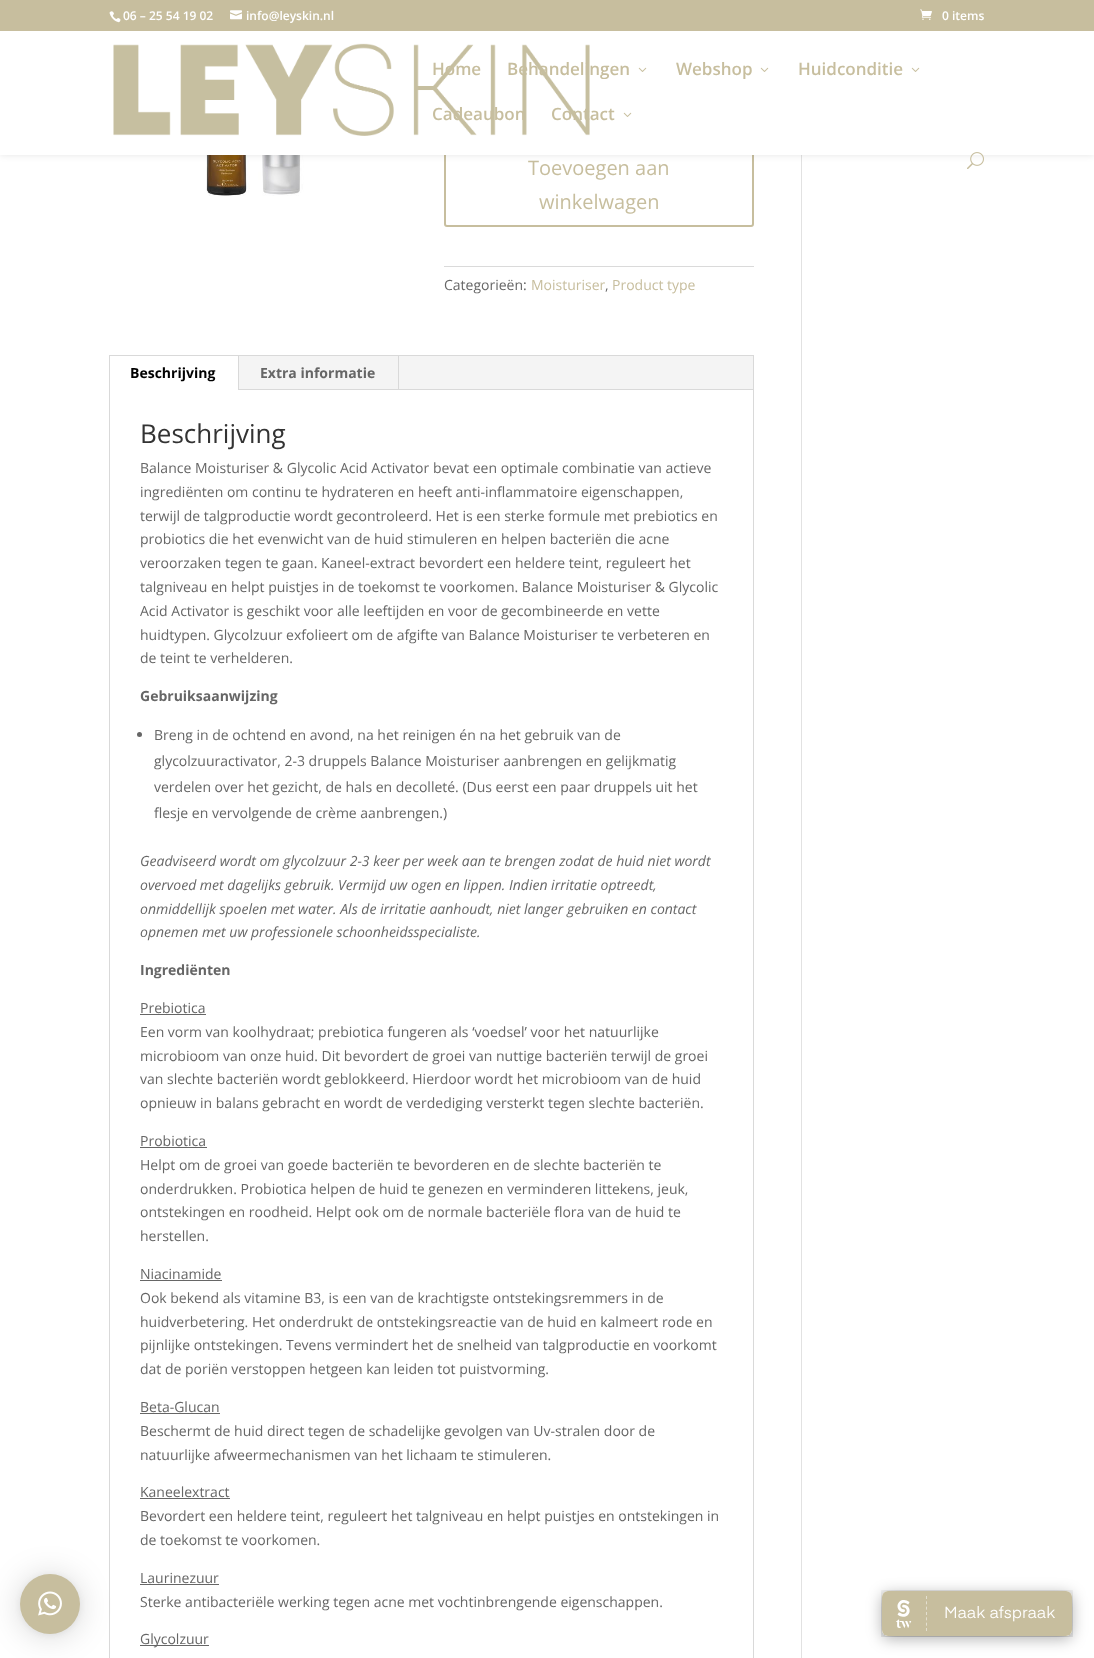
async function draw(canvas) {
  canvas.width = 1094
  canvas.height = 1658
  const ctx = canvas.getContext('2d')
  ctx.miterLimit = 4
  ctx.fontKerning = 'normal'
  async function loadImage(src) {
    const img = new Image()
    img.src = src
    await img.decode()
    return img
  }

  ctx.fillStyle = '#fff'
  ctx.fillRect(0, 0, 1094, 1658)
  ctx.strokeStyle = '#d9d9d9'
  ctx.strokeRect(109.5, 355.5, 644, 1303)
  ctx.fillStyle = '#00000029'
  ctx.filter = 'blur(16px)'
  ctx.beginPath()
  ctx.roundRect(20, 1576, 60, 60, 30)
  ctx.fill()
  ctx.filter = 'none'
  ctx.fillStyle = '#0000000f'
  ctx.filter = 'blur(3px)'
  ctx.beginPath()
  ctx.roundRect(20, 1575, 60, 60, 30)
  ctx.fill()
  ctx.filter = 'none'
  ctx.fillStyle = '#c7be9e'
  ctx.beginPath()
  ctx.arc(50, 1604, 30, 0, 2 * Math.PI)
  ctx.fill()
  ctx.drawImage(await loadImage('image0.png'), 38, 1591, 24, 25)
  ctx.drawImage(await loadImage('image7.png'), 206, 155, 108, 41)
  ctx.beginPath()
  ctx.roundRect(445, 144, 308, 82, 2)
  ctx.strokeStyle = '#c7be9e'
  ctx.lineWidth = 2
  ctx.stroke()
  ctx.fillStyle = '#e2e2e2'
  ctx.fillRect(801, 155, 1, 1503)
  ctx.fillStyle = '#0000001a'
  ctx.filter = 'blur(3.5px)'
  ctx.beginPath()
  ctx.rect(0, 31, 1094, 124)
  ctx.fill()
  ctx.filter = 'none'
  ctx.fillStyle = '#c7be9e'
  ctx.fillRect(0, 0, 1094, 31)
  ctx.drawImage(await loadImage('image1.png'), 109, 11, 12, 12)
  ctx.font = '600 12px Open Sans'
  ctx.fillStyle = '#fff'
  ctx.fillText('06 – 25 54 19 02', 123, 20)
  ctx.drawImage(await loadImage('image2.png'), 230, 10, 12, 10)
  ctx.fillText('info@leyskin.nl', 246, 20)
  ctx.drawImage(await loadImage('image3.png'), 920, 9, 12, 11)
  ctx.fillText('0 items', 942, 20)
  ctx.fillRect(0, 31, 1094, 124)
  ctx.drawImage(await loadImage('image4.png'), 113, 43, 477, 93)
  ctx.font = '600 17px Open Sans'
  ctx.fillStyle = '#c7be9e'
  ctx.fillText('Home', 432, 75)
  ctx.fillText('Behandelingen', 507, 75)
  ctx.drawImage(await loadImage('image5.png'), 638, 67, 9, 5)
  ctx.fillText('Webshop', 676, 75)
  ctx.drawImage(await loadImage('image5.png'), 760, 67, 9, 5)
  ctx.fillText('Huidconditie', 798, 75)
  ctx.drawImage(await loadImage('image5.png'), 911, 67, 9, 5)
  ctx.fillText('Cadeaubon', 432, 120)
  ctx.fillText('Contact', 551, 120)
  ctx.drawImage(await loadImage('image5.png'), 623, 112, 9, 5)
  ctx.drawImage(await loadImage('image6.png'), 967, 152, 17, 17)
  ctx.font = '20px Open Sans'
  ctx.fillText('Toevoegen aan', 528, 175)
  ctx.fillText('winkelwagen', 539, 209)
  ctx.fillStyle = '#dadada'
  ctx.fillRect(444, 266, 310, 1)
  ctx.font = '14px Open Sans'
  ctx.fillStyle = '#666'
  ctx.fillText('Categorieën:', 444, 290)
  ctx.fillStyle = '#c7be9e'
  ctx.fillText('Moisturiser', 531, 290)
  ctx.fillStyle = '#666'
  ctx.fillText(',', 605, 290)
  ctx.fillStyle = '#c7be9e'
  ctx.fillText('Product type', 612, 290)
  ctx.fillStyle = '#f4f4f4'
  ctx.fillRect(239, 356, 514, 33)
  ctx.fillStyle = '#d9d9d9'
  ctx.fillRect(238, 356, 1, 34)
  ctx.font = 'bold 14px Open Sans'
  ctx.fillStyle = '#000'
  ctx.fillText('Beschrijving', 130, 378)
  ctx.fillStyle = '#d9d9d9'
  ctx.fillRect(398, 356, 1, 34)
  ctx.fillStyle = '#666'
  ctx.fillText('Extra informatie', 260, 378)
  ctx.fillStyle = '#d9d9d9'
  ctx.fillRect(239, 389, 514, 1)
  ctx.font = '26px Open Sans'
  ctx.fillStyle = '#333'
  ctx.fillText('Beschrijving', 140, 443)
  ctx.font = '14px Open Sans'
  ctx.fillStyle = '#666'
  ctx.fillText('Balance Moisturiser & Glycolic Acid Activator bevat een optimale combinatie van actieve', 140, 473)
  ctx.fillText('ingrediënten om continu te hydrateren en heeft anti-inflammatoire eigenschappen,', 140, 497)
  ctx.fillText('terwijl de talgproductie wordt gecontroleerd. Het is een sterke formule met prebiotics en', 140, 521)
  ctx.fillText('probiotics die het evenwicht van de huid stimuleren en helpen bacteriën die acne', 140, 544)
  ctx.fillText('veroorzaken tegen te gaan. Kaneel-extract bevordert een heldere teint, reguleert het', 140, 568)
  ctx.fillText('talgniveau en helpt puistjes in de toekomst te voorkomen. Balance Moisturiser & Glycolic', 140, 592)
  ctx.fillText('Acid Activator is geschikt voor alle leeftijden en voor de gecombineerde en vette', 140, 616)
  ctx.fillText('huidtypen. Glycolzuur exfolieert om de afgifte van Balance Moisturiser te verbeteren en', 140, 640)
  ctx.fillText('de teint te verhelderen.', 140, 663)
  ctx.font = 'bold 14px Open Sans'
  ctx.fillText('Gebruiksaanwijzing', 140, 701)
  ctx.beginPath()
  ctx.arc(139.5, 734.5, 2.5, 0, 2 * Math.PI)
  ctx.fill()
  ctx.font = '14px Open Sans'
  ctx.fillText('Breng in de ochtend en avond, na het reinigen én na het gebruik van de', 154, 740)
  ctx.fillText('glycolzuuractivator, 2-3 druppels Balance Moisturiser aanbrengen en gelijkmatig', 154, 766)
  ctx.fillText('verdelen over het gezicht, de hals en decolleté. (Dus eerst een paar druppels uit het', 154, 792)
  ctx.fillText('flesje en vervolgende de crème aanbrengen.)', 154, 818)
  ctx.font = 'italic 14px Open Sans'
  ctx.fillText('Geadviseerd wordt om glycolzuur 2-3 keer per week aan te brengen zodat de huid niet wordt', 140, 866)
  ctx.fillText('overvoed met dagelijks gebruik. Vermijd uw ogen en lippen. Indien irritatie optreedt,', 140, 890)
  ctx.fillText('onmiddellijk spoelen met water. Als de irritatie aanhoudt, niet langer gebruiken en contact', 140, 914)
  ctx.fillText('opnemen met uw professionele schoonheidsspecialiste.', 140, 937)
  ctx.font = 'bold 14px Open Sans'
  ctx.fillText('Ingrediënten', 140, 975)
  ctx.font = '14px Open Sans'
  ctx.fillText('Prebiotica', 140, 1013)
  ctx.fillRect(140, 1014, 66, 1)
  ctx.fillText('Een vorm van koolhydraat; prebiotica fungeren als ‘voedsel’ voor het natuurlijke', 140, 1037)
  ctx.fillText('microbioom van onze huid. Dit bevordert de groei van nuttige bacteriën terwijl de groei', 140, 1061)
  ctx.fillText('van slechte bacteriën wordt geblokkeerd. Hierdoor wordt het microbioom van de huid', 140, 1084)
  ctx.fillText('opnieuw in balans gebracht en wordt de verdediging versterkt tegen slechte bacteriën.', 140, 1108)
  ctx.fillText('Probiotica', 140, 1146)
  ctx.fillRect(140, 1147, 67, 1)
  ctx.fillText('Helpt om de groei van goede bacteriën te bevorderen en de slechte bacteriën te', 140, 1170)
  ctx.fillText('onderdrukken. Probiotica helpen de huid te genezen en verminderen littekens, jeuk,', 140, 1194)
  ctx.fillText('ontstekingen en roodheid. Helpt ook om de normale bacteriële flora van de huid te', 140, 1217)
  ctx.fillText('herstellen.', 140, 1241)
  ctx.fillText('Niacinamide', 140, 1279)
  ctx.fillRect(140, 1280, 82, 1)
  ctx.fillText('Ook bekend als vitamine B3, is een van de krachtigste ontstekingsremmers in de', 140, 1303)
  ctx.fillText('huidverbetering. Het onderdrukt de ontstekingsreactie van de huid en kalmeert rode en', 140, 1327)
  ctx.fillText('pijnlijke ontstekingen. Tevens vermindert het de snelheid van talgproductie en voorkomt', 140, 1350)
  ctx.fillText('dat de poriën verstoppen hetgeen kan leiden tot puistvorming.', 140, 1374)
  ctx.fillText('Beta-Glucan', 140, 1412)
  ctx.fillRect(140, 1413, 80, 1)
  ctx.fillText('Beschermt de huid direct tegen de schadelijke gevolgen van Uv-stralen door de', 140, 1436)
  ctx.fillText('natuurlijke afweermechanismen van het lichaam te stimuleren.', 140, 1460)
  ctx.fillText('Kaneelextract', 140, 1497)
  ctx.fillRect(140, 1498, 90, 1)
  ctx.fillText('Bevordert een heldere teint, reguleert het talgniveau en helpt puistjes en ontstekingen in', 140, 1521)
  ctx.fillText('de toekomst te voorkomen.', 140, 1545)
  ctx.fillText('Laurinezuur', 140, 1583)
  ctx.fillRect(140, 1584, 79, 1)
  ctx.fillText('Sterke antibacteriële werking tegen acne met vochtinbrengende eigenschappen.', 140, 1607)
  ctx.fillRect(140, 1645, 69, 1)
  ctx.fillText('Glycolzuur', 140, 1644)
  ctx.fillStyle = '#0000004d'
  ctx.filter = 'blur(7.5px)'
  ctx.beginPath()
  ctx.roundRect(882, 1594, 190, 45, 6)
  ctx.fill()
  ctx.filter = 'none'
  ctx.drawImage(await loadImage('image8.png'), 881, 1590, 192, 47)
}

draw(document.querySelector('canvas'))
